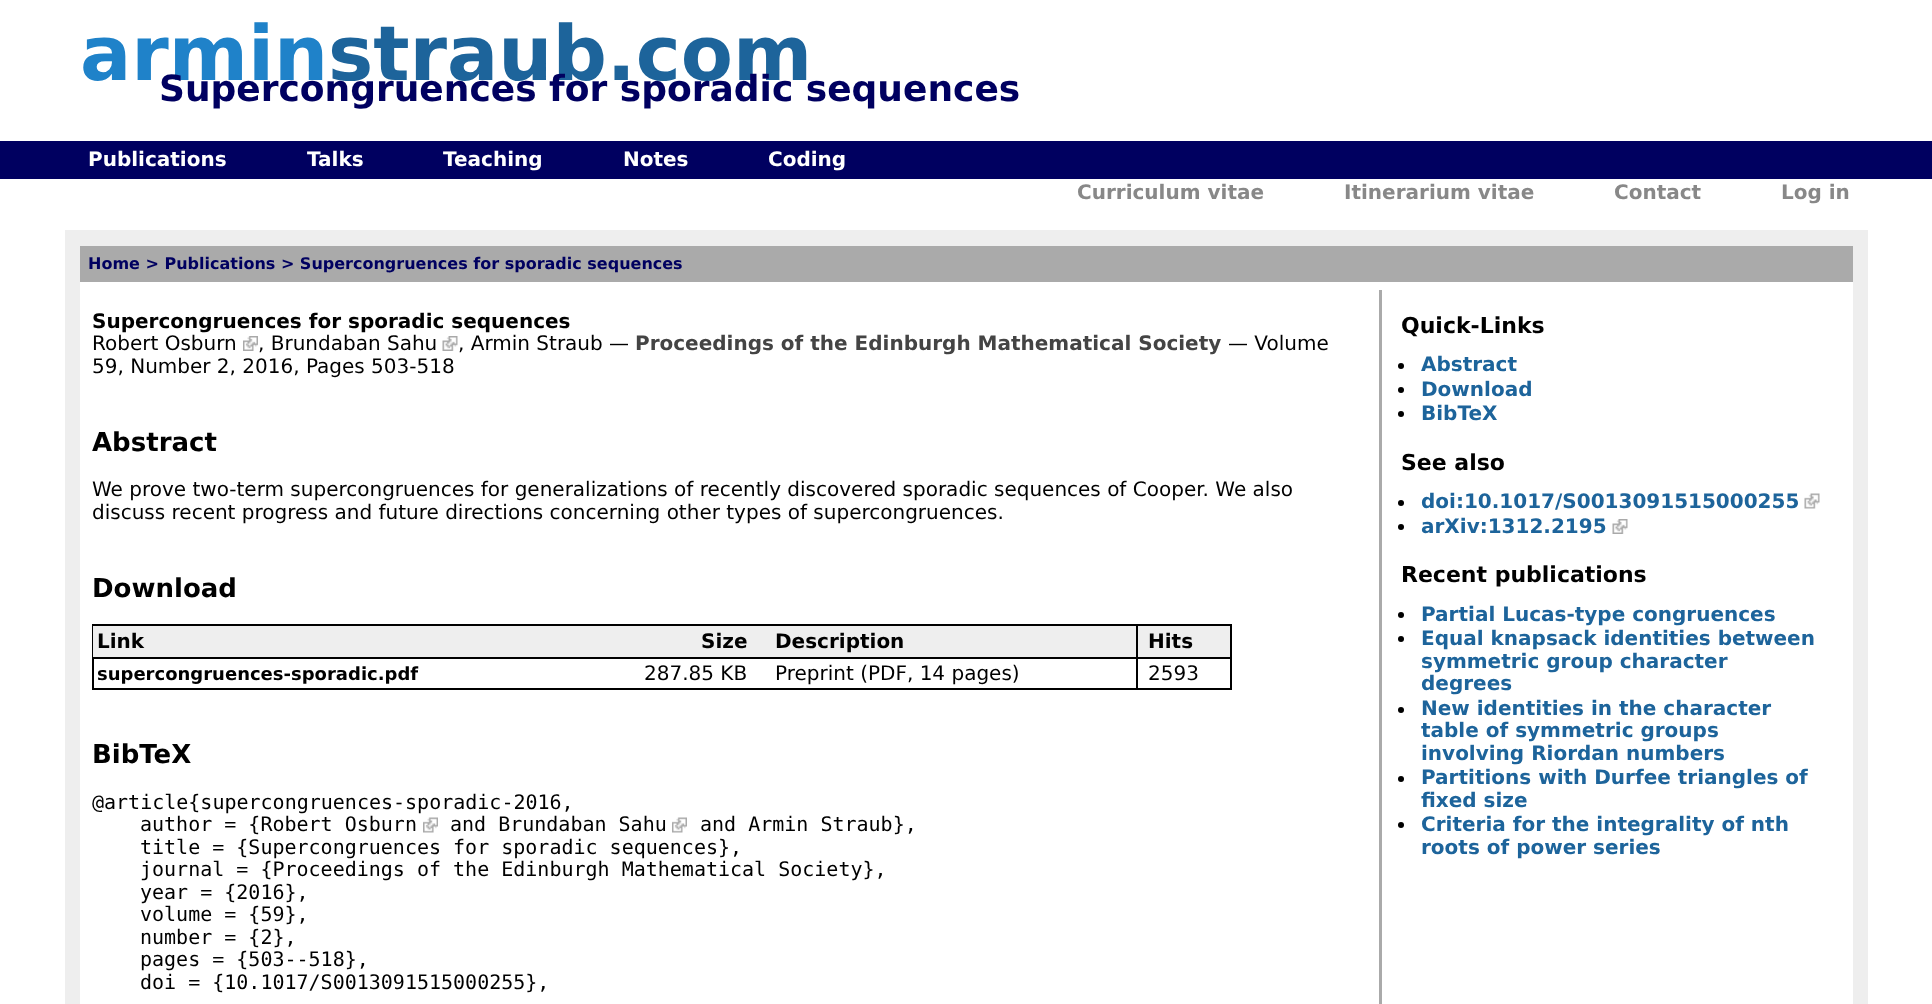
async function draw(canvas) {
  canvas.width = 1932
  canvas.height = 1004
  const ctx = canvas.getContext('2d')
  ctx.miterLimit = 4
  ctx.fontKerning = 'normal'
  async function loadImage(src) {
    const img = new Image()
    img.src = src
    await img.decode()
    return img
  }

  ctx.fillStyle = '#fff'
  ctx.fillRect(0, 0, 1932, 1004)
  ctx.font = 'bold 76px DejaVu Sans'
  ctx.fillStyle = '#1f82c9'
  ctx.fillText('armin', 80, 80)
  ctx.fillStyle = '#1d649b'
  ctx.fillText('straub.com', 328, 80)
  ctx.font = 'bold 36px DejaVu Sans'
  ctx.fillStyle = '#000060'
  ctx.fillText('Supercongruences for sporadic sequences', 159, 101)
  ctx.fillRect(0, 141, 1932, 38)
  ctx.font = 'bold 20px DejaVu Sans'
  ctx.fillStyle = '#fff'
  ctx.fillText('Publications', 88, 166)
  ctx.fillText('Talks', 307, 166)
  ctx.fillText('Teaching', 443, 166)
  ctx.fillText('Notes', 623, 166)
  ctx.fillText('Coding', 768, 166)
  ctx.fillStyle = '#888'
  ctx.fillText('Curriculum vitae', 1077, 199)
  ctx.fillText('Itinerarium vitae', 1344, 199)
  ctx.fillText('Contact', 1614, 199)
  ctx.fillText('Log in', 1781, 199)
  ctx.fillStyle = '#eee'
  ctx.fillRect(65, 230, 1803, 774)
  ctx.fillStyle = '#aaa'
  ctx.fillRect(80, 246, 1773, 36)
  ctx.font = 'bold 16px DejaVu Sans'
  ctx.fillStyle = '#000060'
  ctx.fillText('Home > Publications > Supercongruences for sporadic sequences', 88, 269)
  ctx.fillStyle = '#fff'
  ctx.fillRect(80, 282, 1773, 722)
  ctx.font = 'bold 20px DejaVu Sans'
  ctx.fillStyle = '#000'
  ctx.fillText('Supercongruences for sporadic sequences', 92, 328)
  ctx.font = '20px DejaVu Sans'
  ctx.fillText('Robert Osburn', 92, 350)
  ctx.drawImage(await loadImage('image0.png'), 243, 336, 15, 15)
  ctx.fillText(', Brundaban Sahu', 258, 350)
  ctx.drawImage(await loadImage('image1.png'), 442, 336, 16, 15)
  ctx.fillText(', Armin Straub —', 458, 350)
  ctx.font = 'bold 20px DejaVu Sans'
  ctx.fillStyle = '#444'
  ctx.fillText('Proceedings of the Edinburgh Mathematical Society', 635, 350)
  ctx.font = '20px DejaVu Sans'
  ctx.fillStyle = '#000'
  ctx.fillText('— Volume', 1228, 350)
  ctx.fillText('59, Number 2, 2016, Pages 503-518', 92, 373)
  ctx.font = 'bold 26px DejaVu Sans'
  ctx.fillText('Abstract', 92, 451)
  ctx.font = '20px DejaVu Sans'
  ctx.fillText('We prove two-term supercongruences for generalizations of recently discovered sporadic sequences of Cooper. We also', 92, 496)
  ctx.fillText('discuss recent progress and future directions concerning other types of supercongruences.', 92, 519)
  ctx.font = 'bold 26px DejaVu Sans'
  ctx.fillText('Download', 92, 597)
  ctx.strokeStyle = '#000'
  ctx.lineWidth = 2
  ctx.strokeRect(93, 625, 1138, 64)
  ctx.fillStyle = '#eee'
  ctx.fillRect(93, 626, 1043, 31)
  ctx.fillStyle = '#000'
  ctx.fillRect(93, 657, 1137, 2)
  ctx.font = 'bold 20px DejaVu Sans'
  ctx.fillText('Link', 97, 648)
  ctx.fillText('Size', 701, 648)
  ctx.fillText('Description', 775, 648)
  ctx.fillStyle = '#eee'
  ctx.fillRect(1138, 626, 92, 31)
  ctx.fillStyle = '#000'
  ctx.fillRect(1136, 626, 2, 63)
  ctx.fillText('Hits', 1148, 648)
  ctx.font = 'bold 18px DejaVu Sans'
  ctx.fillText('supercongruences-sporadic.pdf', 97, 680)
  ctx.font = '20px DejaVu Sans'
  ctx.fillText('287.85 KB', 644, 680)
  ctx.fillText('Preprint (PDF, 14 pages)', 775, 680)
  ctx.fillText('2593', 1148, 680)
  ctx.font = 'bold 26px DejaVu Sans'
  ctx.fillText('BibTeX', 92, 763)
  ctx.font = '20px DejaVu Sans Mono'
  ctx.fillText('@article{supercongruences-sporadic-2016,', 92, 809)
  ctx.fillText('author = {Robert Osburn', 140, 831)
  ctx.drawImage(await loadImage('image2.png'), 423, 817, 15, 16)
  ctx.fillText('and Brundaban Sahu', 450, 831)
  ctx.drawImage(await loadImage('image3.png'), 672, 817, 15, 16)
  ctx.fillText('and Armin Straub},', 700, 831)
  ctx.fillText('title = {Supercongruences for sporadic sequences},', 140, 854)
  ctx.fillText('journal = {Proceedings of the Edinburgh Mathematical Society},', 140, 876)
  ctx.fillText('year = {2016},', 140, 899)
  ctx.fillText('volume = {59},', 140, 921)
  ctx.fillText('number = {2},', 140, 944)
  ctx.fillText('pages = {503--518},', 140, 966)
  ctx.fillText('doi = {10.1017/S0013091515000255},', 140, 989)
  ctx.fillStyle = '#aaa'
  ctx.fillRect(1379, 290, 3, 714)
  ctx.font = 'bold 22px DejaVu Sans'
  ctx.fillStyle = '#000'
  ctx.fillText('Quick-Links', 1401, 333)
  ctx.beginPath()
  ctx.arc(1401, 366, 3, 0, 2 * Math.PI)
  ctx.fill()
  ctx.font = 'bold 20px DejaVu Sans'
  ctx.fillStyle = '#1d649b'
  ctx.fillText('Abstract', 1421, 371)
  ctx.fillStyle = '#000'
  ctx.beginPath()
  ctx.arc(1401, 390, 3, 0, 2 * Math.PI)
  ctx.fill()
  ctx.fillStyle = '#1d649b'
  ctx.fillText('Download', 1421, 396)
  ctx.fillStyle = '#000'
  ctx.beginPath()
  ctx.arc(1401, 414, 3, 0, 2 * Math.PI)
  ctx.fill()
  ctx.fillStyle = '#1d649b'
  ctx.fillText('BibTeX', 1421, 420)
  ctx.font = 'bold 22px DejaVu Sans'
  ctx.fillStyle = '#000'
  ctx.fillText('See also', 1401, 470)
  ctx.beginPath()
  ctx.arc(1401, 503, 3, 0, 2 * Math.PI)
  ctx.fill()
  ctx.font = 'bold 20px DejaVu Sans'
  ctx.fillStyle = '#1d649b'
  ctx.fillText('doi:10.1017/S0013091515000255', 1421, 508)
  ctx.drawImage(await loadImage('image4.png'), 1804, 493, 16, 16)
  ctx.fillStyle = '#000'
  ctx.beginPath()
  ctx.arc(1401, 527, 3, 0, 2 * Math.PI)
  ctx.fill()
  ctx.fillStyle = '#1d649b'
  ctx.fillText('arXiv:1312.2195', 1421, 533)
  ctx.drawImage(await loadImage('image5.png'), 1612, 519, 16, 15)
  ctx.font = 'bold 22px DejaVu Sans'
  ctx.fillStyle = '#000'
  ctx.fillText('Recent publications', 1401, 582)
  ctx.beginPath()
  ctx.arc(1401, 615, 3, 0, 2 * Math.PI)
  ctx.fill()
  ctx.font = 'bold 20px DejaVu Sans'
  ctx.fillStyle = '#1d649b'
  ctx.fillText('Partial Lucas-type congruences', 1421, 621)
  ctx.fillStyle = '#000'
  ctx.beginPath()
  ctx.arc(1401, 639, 3, 0, 2 * Math.PI)
  ctx.fill()
  ctx.fillStyle = '#1d649b'
  ctx.fillText('Equal knapsack identities between', 1421, 645)
  ctx.fillText('symmetric group character', 1421, 668)
  ctx.fillText('degrees', 1421, 690)
  ctx.fillStyle = '#000'
  ctx.beginPath()
  ctx.arc(1401, 710, 3, 0, 2 * Math.PI)
  ctx.fill()
  ctx.fillStyle = '#1d649b'
  ctx.fillText('New identities in the character', 1421, 715)
  ctx.fillText('table of symmetric groups', 1421, 737)
  ctx.fillText('involving Riordan numbers', 1421, 760)
  ctx.fillStyle = '#000'
  ctx.beginPath()
  ctx.arc(1401, 779, 3, 0, 2 * Math.PI)
  ctx.fill()
  ctx.fillStyle = '#1d649b'
  ctx.fillText('Partitions with Durfee triangles of', 1421, 784)
  ctx.fillText('fixed size', 1421, 807)
  ctx.fillStyle = '#000'
  ctx.beginPath()
  ctx.arc(1401, 825, 3, 0, 2 * Math.PI)
  ctx.fill()
  ctx.fillStyle = '#1d649b'
  ctx.fillText('Criteria for the integrality of nth', 1421, 831)
  ctx.fillText('roots of power series', 1421, 854)
}

draw(document.querySelector('canvas'))
